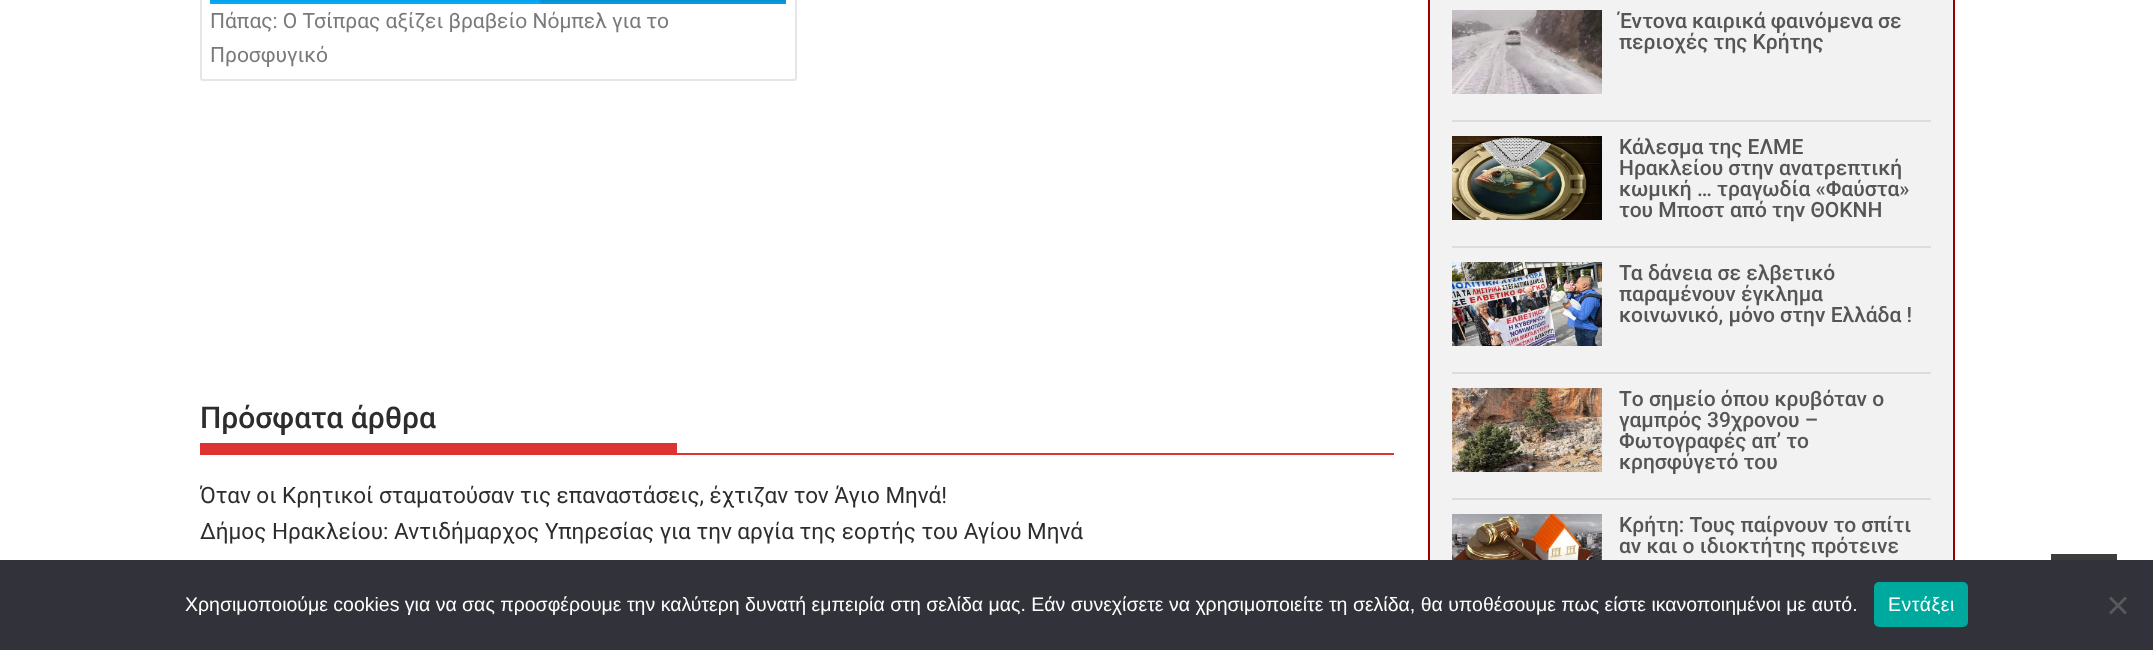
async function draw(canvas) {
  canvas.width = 2153
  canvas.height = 650
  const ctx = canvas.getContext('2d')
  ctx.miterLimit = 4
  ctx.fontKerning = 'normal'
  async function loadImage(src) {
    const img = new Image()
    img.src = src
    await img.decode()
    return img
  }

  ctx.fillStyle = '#fff'
  ctx.fillRect(0, 0, 2153, 650)
  ctx.beginPath()
  ctx.roundRect(201, -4, 595, 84, 2)
  ctx.strokeStyle = '#e5e5e5'
  ctx.lineWidth = 2
  ctx.stroke()
  ctx.drawImage(await loadImage('image0.png'), 210, 0, 576, 4)
  ctx.font = '21px Roboto'
  ctx.fillStyle = '#7a7a7a'
  ctx.fillText('Πάπας: Ο Τσίπρας αξίζει βραβείο Νόμπελ για το', 210, 28)
  ctx.fillText('Προσφυγικό', 210, 62)
  ctx.fillStyle = '#d33'
  ctx.fillRect(200, 453, 1194, 2)
  ctx.font = '500 30px Roboto'
  ctx.fillStyle = '#2d2d2d'
  ctx.fillText('Πρόσφατα άρθρα', 200, 428)
  ctx.fillStyle = '#d33'
  ctx.fillRect(200, 443, 477, 10)
  ctx.font = '22.5px Roboto'
  ctx.fillStyle = '#2d2d2d'
  ctx.fillText('Όταν οι Κρητικοί σταματούσαν τις επαναστάσεις, έχτιζαν τον Άγιο Μηνά!', 200, 503)
  ctx.fillText('Δήμος Ηρακλείου: Αντιδήμαρχος Υπηρεσίας για την αργία της εορτής του Αγίου Μηνά', 200, 539)
  ctx.fillStyle = '#f2f2f2'
  ctx.fillRect(1430, 0, 523, 560)
  ctx.strokeStyle = '#900'
  ctx.strokeRect(1429, -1, 525, 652)
  ctx.fillStyle = '#ddd'
  ctx.fillRect(1452, 120, 479, 2)
  ctx.drawImage(await loadImage('image1.png'), 1452, 10, 150, 84)
  ctx.font = '500 21px Roboto'
  ctx.fillStyle = '#555'
  ctx.fillText('Έντονα καιρικά φαινόμενα σε', 1619, 28)
  ctx.fillText('περιοχές της Κρήτης', 1619, 49)
  ctx.fillStyle = '#ddd'
  ctx.fillRect(1452, 246, 479, 2)
  ctx.drawImage(await loadImage('image2.png'), 1452, 136, 150, 84)
  ctx.fillStyle = '#555'
  ctx.fillText('Κάλεσμα της ΕΛΜΕ', 1619, 154)
  ctx.fillText('Ηρακλείου στην ανατρεπτική', 1619, 175)
  ctx.fillText('κωμική … τραγωδία «Φαύστα»', 1619, 196)
  ctx.fillText('του Μποστ από την ΘΟΚΝΗ', 1619, 217)
  ctx.fillStyle = '#ddd'
  ctx.fillRect(1452, 372, 479, 2)
  ctx.drawImage(await loadImage('image3.png'), 1452, 262, 150, 84)
  ctx.fillStyle = '#555'
  ctx.fillText('Τα δάνεια σε ελβετικό', 1619, 280)
  ctx.fillText('παραμένουν έγκλημα', 1619, 301)
  ctx.fillText('κοινωνικό, μόνο στην Ελλάδα !', 1619, 322)
  ctx.fillStyle = '#ddd'
  ctx.fillRect(1452, 498, 479, 2)
  ctx.drawImage(await loadImage('image4.png'), 1452, 388, 150, 84)
  ctx.fillStyle = '#555'
  ctx.fillText('Tο σημείο όπου κρυβόταν ο', 1619, 406)
  ctx.fillText('γαμπρός 39χρονου –', 1619, 427)
  ctx.fillText('Φωτογραφές απ’ το', 1619, 448)
  ctx.fillText('κρησφύγετό του', 1619, 469)
  ctx.drawImage(await loadImage('image5.png'), 1452, 514, 150, 46)
  ctx.fillText('Κρήτη: Τους παίρνουν το σπίτι', 1619, 532)
  ctx.fillText('αν και ο ιδιοκτήτης πρότεινε', 1619, 553)
  ctx.fillStyle = '#3d3d3d'
  ctx.fillRect(2051, 554, 66, 6)
  ctx.fillStyle = '#32323a'
  ctx.fillRect(0, 560, 2153, 90)
  ctx.font = '19.5px Liberation Sans'
  ctx.fillStyle = '#fff'
  ctx.fillText('Χρησιμοποιούμε cookies για να σας προσφέρουμε την καλύτερη δυνατή εμπειρία στη σελίδα μας. Εάν συνεχίσετε να χρησιμοποιείτε τη σελίδα, θα υποθέσουμε πως είστε ικανοποιημένοι με αυτό.', 185, 611)
  ctx.fillStyle = '#00a99d'
  ctx.beginPath()
  ctx.roundRect(1874, 582, 94, 45, 5)
  ctx.fill()
  ctx.letterSpacing = '0.5px'
  ctx.fillStyle = '#fff'
  ctx.fillText('Εντάξει', 1888, 611)
  ctx.fillStyle = '#59595d'
  ctx.beginPath()
  ctx.moveTo(2125, 596.5)
  ctx.lineTo(2127, 598.5)
  ctx.lineTo(2111, 614.5)
  ctx.lineTo(2109, 612.5)
  ctx.closePath()
  ctx.fill()
  ctx.beginPath()
  ctx.moveTo(2109, 598.5)
  ctx.lineTo(2111, 596.5)
  ctx.lineTo(2127, 612.5)
  ctx.lineTo(2125, 614.5)
  ctx.closePath()
  ctx.fill()
}

draw(document.querySelector('canvas'))
